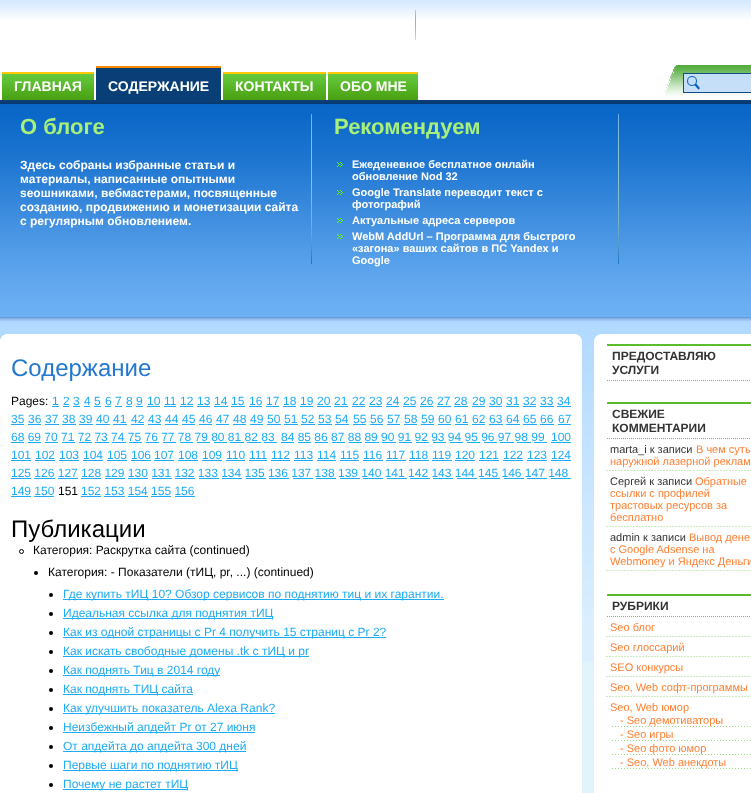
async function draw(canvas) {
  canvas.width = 751
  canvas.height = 793
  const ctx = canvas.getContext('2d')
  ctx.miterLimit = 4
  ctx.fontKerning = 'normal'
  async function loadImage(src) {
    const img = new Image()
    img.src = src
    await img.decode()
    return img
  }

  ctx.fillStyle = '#e1f4fb'
  ctx.fillRect(0, 0, 751, 793)
  ctx.drawImage(await loadImage('image0.png'), 0, 0, 751, 104)
  ctx.drawImage(await loadImage('image1.png'), 415, 10, 1, 30)
  ctx.drawImage(await loadImage('image2.png'), 2, 72, 92, 28)
  ctx.font = 'bold 14px Liberation Sans'
  ctx.fillStyle = '#fff'
  ctx.fillText('ГЛАВНАЯ', 14, 91)
  ctx.drawImage(await loadImage('image3.png'), 101, 66, 120, 34)
  ctx.drawImage(await loadImage('image4.png'), 96, 66, 5, 34)
  ctx.fillText('СОДЕРЖАНИЕ', 108, 91)
  ctx.drawImage(await loadImage('image5.png'), 223, 72, 103, 28)
  ctx.fillText('КОНТАКТЫ', 235, 91)
  ctx.drawImage(await loadImage('image6.png'), 328, 72, 90, 28)
  ctx.fillText('ОБО МНЕ', 340, 91)
  ctx.drawImage(await loadImage('image7.png'), 664, 65, 87, 31)
  ctx.fillStyle = '#c6dff8'
  ctx.fillRect(684, 74, 67, 18)
  ctx.drawImage(await loadImage('image8.png'), 687, 76, 13, 14)
  ctx.strokeStyle = '#134c88'
  ctx.strokeRect(683.5, 73.5, 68, 19)
  ctx.drawImage(await loadImage('image9.png'), 0, 104, 751, 220)
  ctx.drawImage(await loadImage('image10.png'), 311, 114, 1, 150)
  ctx.font = 'bold 22px Liberation Sans'
  ctx.fillStyle = '#a8f179'
  ctx.fillText('О блоге', 20, 134)
  ctx.font = 'bold 12px Liberation Sans'
  ctx.fillStyle = '#fff'
  ctx.fillText('Здесь собраны избранные статьи и', 20, 169)
  ctx.fillText('материалы, написанные опытными', 20, 183)
  ctx.fillText('seoшниками, вебмастерами, посвященные', 20, 197)
  ctx.fillText('созданию, продвижению и монетизации сайта', 20, 211)
  ctx.fillText('с регулярным обновлением.', 20, 225)
  ctx.drawImage(await loadImage('image10.png'), 618, 114, 1, 150)
  ctx.font = 'bold 22px Liberation Sans'
  ctx.fillStyle = '#a8f179'
  ctx.fillText('Рекомендуем', 334, 134)
  ctx.drawImage(await loadImage('image11.png'), 337, 162, 6, 5)
  ctx.font = 'bold 11px Liberation Sans'
  ctx.fillStyle = '#fff'
  ctx.fillText('Ежеденевное бесплатное онлайн', 352, 168)
  ctx.fillText('обновление Nod 32', 352, 180)
  ctx.drawImage(await loadImage('image12.png'), 337, 190, 6, 5)
  ctx.fillText('Google Translate переводит текст с', 352, 196)
  ctx.fillText('фотографий', 352, 208)
  ctx.drawImage(await loadImage('image13.png'), 337, 218, 6, 5)
  ctx.fillText('Актуальные адреса серверов', 352, 224)
  ctx.drawImage(await loadImage('image14.png'), 337, 234, 6, 5)
  ctx.fillText('WebM AddUrl – Программа для быстрого', 352, 240)
  ctx.fillText('«загона» ваших сайтов в ПС Yandex и', 352, 252)
  ctx.fillText('Google', 352, 264)
  ctx.drawImage(await loadImage('image15.png'), 0, 324, 751, 338)
  ctx.drawImage(await loadImage('image16.png'), 1, 334, 750, 5)
  ctx.drawImage(await loadImage('image17.png'), 0, 339, 751, 454)
  ctx.font = '24px Liberation Sans'
  ctx.fillStyle = '#2478cf'
  ctx.fillText('Содержание', 11, 376)
  ctx.font = '12px Liberation Sans'
  ctx.fillStyle = '#000'
  ctx.fillText('Pages:', 11, 405)
  ctx.fillStyle = '#1eacf5'
  ctx.fillText('1', 52, 405)
  ctx.fillRect(52, 406, 7, 1)
  ctx.fillText('2', 63, 405)
  ctx.fillRect(63, 406, 6, 1)
  ctx.fillText('3', 73, 405)
  ctx.fillRect(73, 406, 7, 1)
  ctx.fillText('4', 84, 405)
  ctx.fillRect(84, 406, 6, 1)
  ctx.fillText('5', 94, 405)
  ctx.fillRect(94, 406, 7, 1)
  ctx.fillText('6', 105, 405)
  ctx.fillRect(105, 406, 6, 1)
  ctx.fillText('7', 115, 405)
  ctx.fillRect(115, 406, 7, 1)
  ctx.fillText('8', 126, 405)
  ctx.fillRect(126, 406, 6, 1)
  ctx.fillText('9', 136, 405)
  ctx.fillRect(136, 406, 7, 1)
  ctx.fillText('10', 147, 405)
  ctx.fillRect(147, 406, 13, 1)
  ctx.fillText('11', 164, 405)
  ctx.fillRect(164, 406, 12, 1)
  ctx.fillText('12', 180, 405)
  ctx.fillRect(180, 406, 13, 1)
  ctx.fillText('13', 197, 405)
  ctx.fillRect(197, 406, 13, 1)
  ctx.fillText('14', 214, 405)
  ctx.fillRect(214, 406, 14, 1)
  ctx.fillText('15', 231, 405)
  ctx.fillRect(231, 406, 14, 1)
  ctx.fillText('16', 249, 405)
  ctx.fillRect(249, 406, 13, 1)
  ctx.fillText('17', 266, 405)
  ctx.fillRect(266, 406, 13, 1)
  ctx.fillText('18', 283, 405)
  ctx.fillRect(283, 406, 13, 1)
  ctx.fillText('19', 300, 405)
  ctx.fillRect(300, 406, 13, 1)
  ctx.fillText('20', 317, 405)
  ctx.fillRect(317, 406, 14, 1)
  ctx.fillText('21', 334, 405)
  ctx.fillRect(334, 406, 14, 1)
  ctx.fillText('22', 352, 405)
  ctx.fillRect(352, 406, 13, 1)
  ctx.fillText('23', 369, 405)
  ctx.fillRect(369, 406, 13, 1)
  ctx.fillText('24', 386, 405)
  ctx.fillRect(386, 406, 13, 1)
  ctx.fillText('25', 403, 405)
  ctx.fillRect(403, 406, 13, 1)
  ctx.fillText('26', 420, 405)
  ctx.fillRect(420, 406, 13, 1)
  ctx.fillText('27', 437, 405)
  ctx.fillRect(437, 406, 14, 1)
  ctx.fillText('28', 454, 405)
  ctx.fillRect(454, 406, 14, 1)
  ctx.fillText('29', 472, 405)
  ctx.fillRect(472, 406, 13, 1)
  ctx.fillText('30', 489, 405)
  ctx.fillRect(489, 406, 13, 1)
  ctx.fillText('31', 506, 405)
  ctx.fillRect(506, 406, 13, 1)
  ctx.fillText('32', 523, 405)
  ctx.fillRect(523, 406, 13, 1)
  ctx.fillText('33', 540, 405)
  ctx.fillRect(540, 406, 14, 1)
  ctx.fillText('34', 557, 405)
  ctx.fillRect(557, 406, 14, 1)
  ctx.fillText('35', 11, 423)
  ctx.fillRect(11, 424, 13, 1)
  ctx.fillText('36', 28, 423)
  ctx.fillRect(28, 424, 13, 1)
  ctx.fillText('37', 45, 423)
  ctx.fillRect(45, 424, 14, 1)
  ctx.fillText('38', 62, 423)
  ctx.fillRect(62, 424, 14, 1)
  ctx.fillText('39', 79, 423)
  ctx.fillRect(79, 424, 14, 1)
  ctx.fillText('40', 96, 423)
  ctx.fillRect(96, 424, 14, 1)
  ctx.fillText('41', 113, 423)
  ctx.fillRect(113, 424, 14, 1)
  ctx.fillText('42', 131, 423)
  ctx.fillRect(131, 424, 13, 1)
  ctx.fillText('43', 148, 423)
  ctx.fillRect(148, 424, 13, 1)
  ctx.fillText('44', 165, 423)
  ctx.fillRect(165, 424, 13, 1)
  ctx.fillText('45', 182, 423)
  ctx.fillRect(182, 424, 13, 1)
  ctx.fillText('46', 199, 423)
  ctx.fillRect(199, 424, 13, 1)
  ctx.fillText('47', 216, 423)
  ctx.fillRect(216, 424, 13, 1)
  ctx.fillText('48', 233, 423)
  ctx.fillRect(233, 424, 13, 1)
  ctx.fillText('49', 250, 423)
  ctx.fillRect(250, 424, 13, 1)
  ctx.fillText('50', 267, 423)
  ctx.fillRect(267, 424, 14, 1)
  ctx.fillText('51', 284, 423)
  ctx.fillRect(284, 424, 14, 1)
  ctx.fillText('52', 301, 423)
  ctx.fillRect(301, 424, 14, 1)
  ctx.fillText('53', 318, 423)
  ctx.fillRect(318, 424, 14, 1)
  ctx.fillText('54', 335, 423)
  ctx.fillRect(335, 424, 14, 1)
  ctx.fillText('55', 353, 423)
  ctx.fillRect(353, 424, 13, 1)
  ctx.fillText('56', 370, 423)
  ctx.fillRect(370, 424, 13, 1)
  ctx.fillText('57', 387, 423)
  ctx.fillRect(387, 424, 13, 1)
  ctx.fillText('58', 404, 423)
  ctx.fillRect(404, 424, 13, 1)
  ctx.fillText('59', 421, 423)
  ctx.fillRect(421, 424, 13, 1)
  ctx.fillText('60', 438, 423)
  ctx.fillRect(438, 424, 13, 1)
  ctx.fillText('61', 455, 423)
  ctx.fillRect(455, 424, 13, 1)
  ctx.fillText('62', 472, 423)
  ctx.fillRect(472, 424, 13, 1)
  ctx.fillText('63', 489, 423)
  ctx.fillRect(489, 424, 14, 1)
  ctx.fillText('64', 506, 423)
  ctx.fillRect(506, 424, 14, 1)
  ctx.fillText('65', 523, 423)
  ctx.fillRect(523, 424, 14, 1)
  ctx.fillText('66', 540, 423)
  ctx.fillRect(540, 424, 14, 1)
  ctx.fillText('67', 558, 423)
  ctx.fillRect(558, 424, 13, 1)
  ctx.fillText('68 69 70 71 72 73 74 75 76 77 78 79 80 81 82 83', 11, 441)
  ctx.fillText('84 85 86 87 88 89 90 91 92 93 94 95 96 97 98 99', 281, 441)
  ctx.fillText('100', 551, 441)
  ctx.fillRect(11, 442, 13, 1)
  ctx.fillRect(28, 442, 13, 1)
  ctx.fillRect(45, 442, 13, 1)
  ctx.fillRect(62, 442, 13, 1)
  ctx.fillRect(79, 442, 13, 1)
  ctx.fillRect(95, 442, 14, 1)
  ctx.fillRect(112, 442, 14, 1)
  ctx.fillRect(129, 442, 13, 1)
  ctx.fillRect(146, 442, 13, 1)
  ctx.fillRect(163, 442, 13, 1)
  ctx.fillRect(180, 442, 13, 1)
  ctx.fillRect(197, 442, 13, 1)
  ctx.fillRect(214, 442, 13, 1)
  ctx.fillRect(230, 442, 14, 1)
  ctx.fillRect(247, 442, 14, 1)
  ctx.fillRect(264, 442, 13, 1)
  ctx.fillRect(281, 442, 13, 1)
  ctx.fillRect(298, 442, 13, 1)
  ctx.fillRect(315, 442, 13, 1)
  ctx.fillRect(332, 442, 13, 1)
  ctx.fillRect(349, 442, 13, 1)
  ctx.fillRect(365, 442, 14, 1)
  ctx.fillRect(382, 442, 14, 1)
  ctx.fillRect(399, 442, 13, 1)
  ctx.fillRect(416, 442, 13, 1)
  ctx.fillRect(433, 442, 13, 1)
  ctx.fillRect(450, 442, 13, 1)
  ctx.fillRect(467, 442, 13, 1)
  ctx.fillRect(484, 442, 13, 1)
  ctx.fillRect(500, 442, 14, 1)
  ctx.fillRect(517, 442, 14, 1)
  ctx.fillRect(534, 442, 13, 1)
  ctx.fillRect(551, 442, 20, 1)
  ctx.fillText('101', 11, 459)
  ctx.fillRect(11, 460, 20, 1)
  ctx.fillText('102', 35, 459)
  ctx.fillRect(35, 460, 20, 1)
  ctx.fillText('103', 59, 459)
  ctx.fillRect(59, 460, 20, 1)
  ctx.fillText('104', 83, 459)
  ctx.fillRect(83, 460, 20, 1)
  ctx.fillText('105', 107, 459)
  ctx.fillRect(107, 460, 20, 1)
  ctx.fillText('106', 131, 459)
  ctx.fillRect(131, 460, 20, 1)
  ctx.fillText('107', 154, 459)
  ctx.fillRect(154, 460, 20, 1)
  ctx.fillText('108', 178, 459)
  ctx.fillRect(178, 460, 20, 1)
  ctx.fillText('109', 202, 459)
  ctx.fillRect(202, 460, 20, 1)
  ctx.fillText('110', 226, 459)
  ctx.fillRect(226, 460, 19, 1)
  ctx.fillText('111', 249, 459)
  ctx.fillRect(249, 460, 18, 1)
  ctx.fillText('112', 271, 459)
  ctx.fillRect(271, 460, 19, 1)
  ctx.fillText('113', 294, 459)
  ctx.fillRect(294, 460, 19, 1)
  ctx.fillText('114', 317, 459)
  ctx.fillRect(317, 460, 19, 1)
  ctx.fillText('115', 340, 459)
  ctx.fillRect(340, 460, 19, 1)
  ctx.fillText('116', 363, 459)
  ctx.fillRect(363, 460, 20, 1)
  ctx.fillText('117', 386, 459)
  ctx.fillRect(386, 460, 20, 1)
  ctx.fillText('118', 409, 459)
  ctx.fillRect(409, 460, 20, 1)
  ctx.fillText('119', 432, 459)
  ctx.fillRect(432, 460, 20, 1)
  ctx.fillText('120', 455, 459)
  ctx.fillRect(455, 460, 20, 1)
  ctx.fillText('121', 479, 459)
  ctx.fillRect(479, 460, 20, 1)
  ctx.fillText('122', 503, 459)
  ctx.fillRect(503, 460, 20, 1)
  ctx.fillText('123', 527, 459)
  ctx.fillRect(527, 460, 20, 1)
  ctx.fillText('124', 551, 459)
  ctx.fillRect(551, 460, 20, 1)
  ctx.fillText('125 126 127 128 129 130 131 132 133 134 135 136 137 138 139 140 141 142 143 144 145 146 147 148', 11, 477)
  ctx.fillRect(11, 478, 20, 1)
  ctx.fillRect(34, 478, 21, 1)
  ctx.fillRect(58, 478, 20, 1)
  ctx.fillRect(81, 478, 20, 1)
  ctx.fillRect(105, 478, 20, 1)
  ctx.fillRect(128, 478, 20, 1)
  ctx.fillRect(152, 478, 20, 1)
  ctx.fillRect(175, 478, 20, 1)
  ctx.fillRect(199, 478, 20, 1)
  ctx.fillRect(222, 478, 20, 1)
  ctx.fillRect(246, 478, 20, 1)
  ctx.fillRect(269, 478, 20, 1)
  ctx.fillRect(293, 478, 20, 1)
  ctx.fillRect(316, 478, 20, 1)
  ctx.fillRect(340, 478, 20, 1)
  ctx.fillRect(363, 478, 20, 1)
  ctx.fillRect(387, 478, 20, 1)
  ctx.fillRect(410, 478, 20, 1)
  ctx.fillRect(433, 478, 20, 1)
  ctx.fillRect(457, 478, 20, 1)
  ctx.fillRect(480, 478, 20, 1)
  ctx.fillRect(504, 478, 20, 1)
  ctx.fillRect(527, 478, 20, 1)
  ctx.fillRect(551, 478, 20, 1)
  ctx.fillText('149 150', 11, 495)
  ctx.fillRect(11, 496, 20, 1)
  ctx.fillStyle = '#000'
  ctx.fillText('151', 58, 495)
  ctx.fillStyle = '#1eacf5'
  ctx.fillText('152 153 154 155 156', 81, 495)
  ctx.fillRect(81, 496, 20, 1)
  ctx.fillRect(34, 496, 20, 1)
  ctx.fillRect(104, 496, 21, 1)
  ctx.fillRect(128, 496, 20, 1)
  ctx.fillRect(151, 496, 20, 1)
  ctx.fillRect(175, 496, 20, 1)
  ctx.font = '24px Liberation Sans'
  ctx.fillStyle = '#000'
  ctx.fillText('Публикации', 11, 537)
  ctx.beginPath()
  ctx.arc(21.5, 551.5, 2, 0, 2 * Math.PI)
  ctx.strokeStyle = '#000'
  ctx.stroke()
  ctx.font = '12px Liberation Sans'
  ctx.fillText('Категория: Раскрутка сайта (continued)', 33, 554)
  ctx.beginPath()
  ctx.arc(36, 573, 2, 0, 2 * Math.PI)
  ctx.fill()
  ctx.fillText('Категория: - Показатели (тИЦ, pr, ...) (continued)', 48, 576)
  ctx.beginPath()
  ctx.arc(51, 595, 2, 0, 2 * Math.PI)
  ctx.fill()
  ctx.fillStyle = '#1eacf5'
  ctx.fillRect(63, 599, 381, 1)
  ctx.fillText('Где купить тИЦ 10? Обзор сервисов по поднятию тиц и их гарантии.', 63, 598)
  ctx.fillStyle = '#000'
  ctx.beginPath()
  ctx.arc(51, 614, 2, 0, 2 * Math.PI)
  ctx.fill()
  ctx.fillStyle = '#1eacf5'
  ctx.fillRect(63, 618, 210, 1)
  ctx.fillText('Идеальная ссылка для поднятия тИЦ', 63, 617)
  ctx.fillStyle = '#000'
  ctx.beginPath()
  ctx.arc(51, 633, 2, 0, 2 * Math.PI)
  ctx.fill()
  ctx.fillStyle = '#1eacf5'
  ctx.fillRect(63, 637, 323, 1)
  ctx.fillText('Как из одной страницы с Pr 4 получить 15 страниц с Pr 2?', 63, 636)
  ctx.fillStyle = '#000'
  ctx.beginPath()
  ctx.arc(51, 652, 2, 0, 2 * Math.PI)
  ctx.fill()
  ctx.fillStyle = '#1eacf5'
  ctx.fillRect(63, 656, 246, 1)
  ctx.fillText('Как искать свободные домены .tk с тИЦ и pr', 63, 655)
  ctx.fillStyle = '#000'
  ctx.beginPath()
  ctx.arc(51, 671, 2, 0, 2 * Math.PI)
  ctx.fill()
  ctx.fillStyle = '#1eacf5'
  ctx.fillRect(63, 675, 157, 1)
  ctx.fillText('Как поднять Тиц в 2014 году', 63, 674)
  ctx.fillStyle = '#000'
  ctx.beginPath()
  ctx.arc(51, 690, 2, 0, 2 * Math.PI)
  ctx.fill()
  ctx.fillStyle = '#1eacf5'
  ctx.fillRect(63, 694, 130, 1)
  ctx.fillText('Как поднять ТИЦ сайта', 63, 693)
  ctx.fillStyle = '#000'
  ctx.beginPath()
  ctx.arc(51, 709, 2, 0, 2 * Math.PI)
  ctx.fill()
  ctx.fillStyle = '#1eacf5'
  ctx.fillRect(63, 713, 212, 1)
  ctx.fillText('Как улучшить показатель Alexa Rank?', 63, 712)
  ctx.fillStyle = '#000'
  ctx.beginPath()
  ctx.arc(51, 728, 2, 0, 2 * Math.PI)
  ctx.fill()
  ctx.fillStyle = '#1eacf5'
  ctx.fillRect(63, 732, 192, 1)
  ctx.fillText('Неизбежный апдейт Pr от 27 июня', 63, 731)
  ctx.fillStyle = '#000'
  ctx.beginPath()
  ctx.arc(51, 747, 2, 0, 2 * Math.PI)
  ctx.fill()
  ctx.fillStyle = '#1eacf5'
  ctx.fillRect(63, 751, 183, 1)
  ctx.fillText('От апдейта до апдейта 300 дней', 63, 750)
  ctx.fillStyle = '#000'
  ctx.beginPath()
  ctx.arc(51, 766, 2, 0, 2 * Math.PI)
  ctx.fill()
  ctx.fillStyle = '#1eacf5'
  ctx.fillRect(63, 770, 175, 1)
  ctx.fillText('Первые шаги по поднятию тИЦ', 63, 769)
  ctx.fillStyle = '#000'
  ctx.beginPath()
  ctx.arc(51, 785, 2, 0, 2 * Math.PI)
  ctx.fill()
  ctx.fillStyle = '#1eacf5'
  ctx.fillRect(63, 789, 125, 1)
  ctx.fillText('Почему не растет тИЦ', 63, 788)
  ctx.fillStyle = '#5bbc2d'
  ctx.fillRect(607, 344, 144, 2)
  ctx.beginPath()
  ctx.moveTo(607, 380.5)
  ctx.lineTo(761, 380.5)
  ctx.strokeStyle = '#ff8033'
  ctx.setLineDash([1, 1])
  ctx.stroke()
  ctx.font = 'bold 12px Liberation Sans'
  ctx.fillStyle = '#333'
  ctx.fillText('ПРЕДОСТАВЛЯЮ', 612, 360)
  ctx.fillText('УСЛУГИ', 612, 374)
  ctx.fillStyle = '#5bbc2d'
  ctx.fillRect(607, 402, 144, 2)
  ctx.beginPath()
  ctx.moveTo(607, 438.5)
  ctx.lineTo(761, 438.5)
  ctx.stroke()
  ctx.fillStyle = '#333'
  ctx.fillText('СВЕЖИЕ', 612, 418)
  ctx.fillText('КОММЕНТАРИИ', 612, 432)
  ctx.drawImage(await loadImage('image18.png'), 606, 470, 145, 1)
  ctx.font = '11px Liberation Sans'
  ctx.fillText('marta_i к записи', 610, 453)
  ctx.fillStyle = '#ff8033'
  ctx.fillText('В чем суть', 696, 453)
  ctx.fillText('наружной лазерной реклам', 610, 465)
  ctx.drawImage(await loadImage('image18.png'), 606, 526, 145, 1)
  ctx.fillStyle = '#333'
  ctx.fillText('Сергей к записи', 610, 485)
  ctx.fillStyle = '#ff8033'
  ctx.fillText('Обратные', 695, 485)
  ctx.fillText('ссылки с профилей', 610, 497)
  ctx.fillText('трастовых ресурсов за', 610, 509)
  ctx.fillText('бесплатно', 610, 521)
  ctx.drawImage(await loadImage('image18.png'), 606, 570, 145, 1)
  ctx.fillStyle = '#333'
  ctx.fillText('admin к записи', 610, 541)
  ctx.fillStyle = '#ff8033'
  ctx.fillText('Вывод дене', 689, 541)
  ctx.fillText('с Google Adsense на', 610, 553)
  ctx.fillText('Webmoney и Яндекс Деньги', 610, 565)
  ctx.fillStyle = '#5bbc2d'
  ctx.fillRect(607, 594, 144, 2)
  ctx.beginPath()
  ctx.moveTo(607, 616.5)
  ctx.lineTo(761, 616.5)
  ctx.stroke()
  ctx.font = 'bold 12px Liberation Sans'
  ctx.fillStyle = '#333'
  ctx.fillText('РУБРИКИ', 612, 610)
  ctx.drawImage(await loadImage('image18.png'), 606, 636, 145, 1)
  ctx.font = '11px Liberation Sans'
  ctx.fillStyle = '#ff8033'
  ctx.fillText('Seo блог', 610, 631)
  ctx.drawImage(await loadImage('image18.png'), 606, 656, 145, 1)
  ctx.fillText('Seo глоссарий', 610, 651)
  ctx.drawImage(await loadImage('image18.png'), 606, 676, 145, 1)
  ctx.fillText('SEO конкурсы', 610, 671)
  ctx.drawImage(await loadImage('image18.png'), 606, 696, 145, 1)
  ctx.fillText('Seo, Web софт-программы', 610, 691)
  ctx.fillText('Seo, Web юмор', 610, 711)
  ctx.drawImage(await loadImage('image19.png'), 612, 726, 139, 1)
  ctx.fillText('- Seo демотиваторы', 620, 724)
  ctx.drawImage(await loadImage('image19.png'), 612, 740, 139, 1)
  ctx.fillText('- Seo игры', 620, 738)
  ctx.drawImage(await loadImage('image19.png'), 612, 754, 139, 1)
  ctx.fillText('- Seo фото юмор', 620, 752)
  ctx.drawImage(await loadImage('image19.png'), 612, 768, 139, 1)
  ctx.fillText('- Seo, Web анекдоты', 620, 766)
}

draw(document.querySelector('canvas'))
